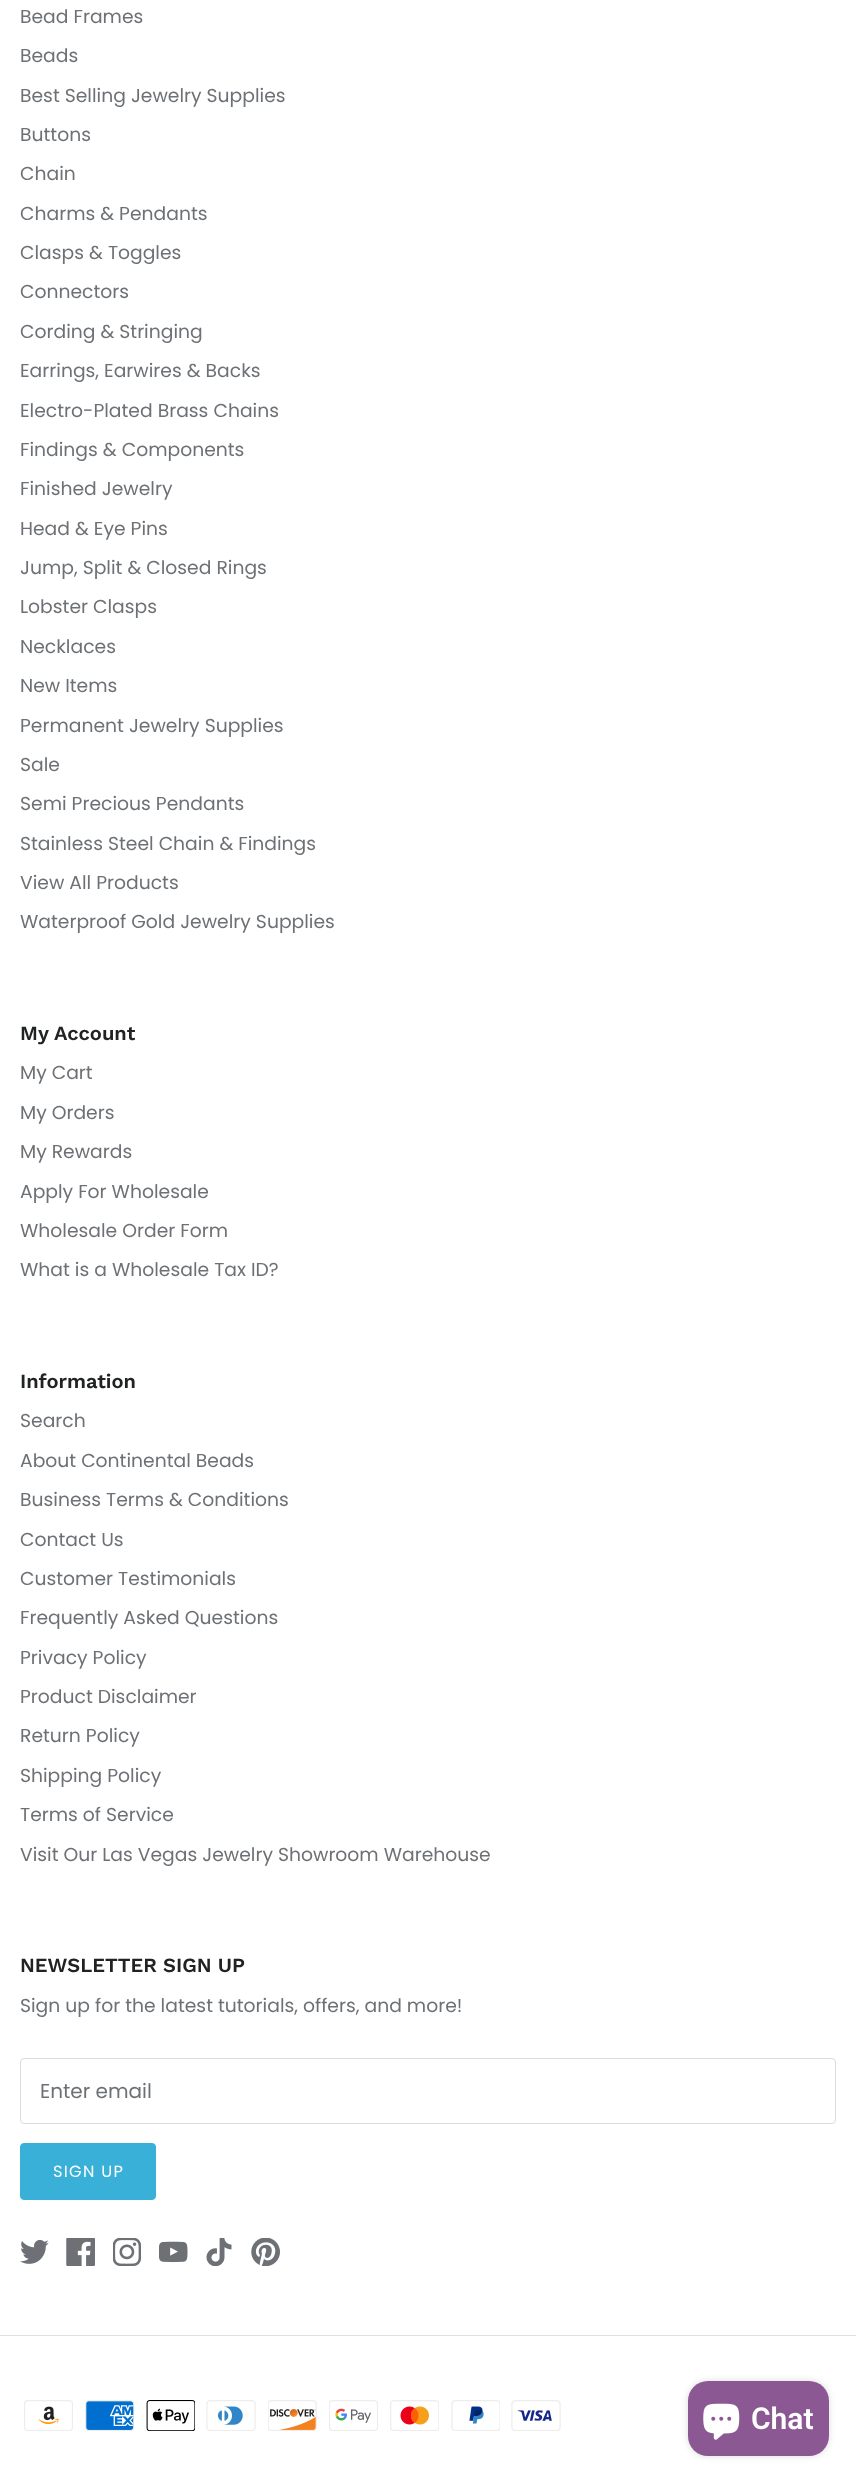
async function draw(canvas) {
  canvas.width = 856
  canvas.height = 2482
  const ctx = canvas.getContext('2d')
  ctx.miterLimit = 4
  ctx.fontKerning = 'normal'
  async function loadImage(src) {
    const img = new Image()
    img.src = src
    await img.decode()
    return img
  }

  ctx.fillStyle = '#fff'
  ctx.fillRect(0, 0, 856, 2482)
  ctx.font = '18.75px Poppins'
  ctx.fillStyle = '#6d7175'
  ctx.fillText('Bead Frames', 20, 23)
  ctx.fillText('Beads', 20, 62)
  ctx.fillText('Best Selling Jewelry Supplies', 20, 102)
  ctx.fillText('Buttons', 20, 141)
  ctx.fillText('Chain', 20, 180)
  ctx.fillText('Charms & Pendants', 20, 220)
  ctx.fillText('Clasps & Toggles', 20, 259)
  ctx.fillText('Connectors', 20, 298)
  ctx.fillText('Cording & Stringing', 20, 338)
  ctx.fillText('Earrings, Earwires & Backs', 20, 377)
  ctx.fillText('Electro-Plated Brass Chains', 20, 417)
  ctx.fillText('Findings & Components', 20, 456)
  ctx.fillText('Finished Jewelry', 20, 495)
  ctx.fillText('Head & Eye Pins', 20, 535)
  ctx.fillText('Jump, Split & Closed Rings', 20, 574)
  ctx.fillText('Lobster Clasps', 20, 613)
  ctx.fillText('Necklaces', 20, 653)
  ctx.fillText('New Items', 20, 692)
  ctx.fillText('Permanent Jewelry Supplies', 20, 732)
  ctx.fillText('Sale', 20, 771)
  ctx.fillText('Semi Precious Pendants', 20, 810)
  ctx.fillText('Stainless Steel Chain & Findings', 20, 850)
  ctx.fillText('View All Products', 20, 889)
  ctx.fillText('Waterproof Gold Jewelry Supplies', 20, 928)
  ctx.font = '600 20.1px Work Sans'
  ctx.fillStyle = '#202223'
  ctx.fillText('My Account', 20, 1040)
  ctx.font = '18.75px Poppins'
  ctx.fillStyle = '#6d7175'
  ctx.fillText('My Cart', 20, 1079)
  ctx.fillText('My Orders', 20, 1119)
  ctx.fillText('My Rewards', 20, 1158)
  ctx.fillText('Apply For Wholesale', 20, 1198)
  ctx.fillText('Wholesale Order Form', 20, 1237)
  ctx.fillText('What is a Wholesale Tax ID?', 20, 1276)
  ctx.font = '600 20.1px Work Sans'
  ctx.fillStyle = '#202223'
  ctx.fillText('Information', 20, 1388)
  ctx.font = '18.75px Poppins'
  ctx.fillStyle = '#6d7175'
  ctx.fillText('Search', 20, 1427)
  ctx.fillText('About Continental Beads', 20, 1467)
  ctx.fillText('Business Terms & Conditions', 20, 1506)
  ctx.fillText('Contact Us', 20, 1546)
  ctx.fillText('Customer Testimonials', 20, 1585)
  ctx.fillText('Frequently Asked Questions', 20, 1624)
  ctx.fillText('Privacy Policy', 20, 1664)
  ctx.fillText('Product Disclaimer', 20, 1703)
  ctx.fillText('Return Policy', 20, 1742)
  ctx.fillText('Shipping Policy', 20, 1782)
  ctx.fillText('Terms of Service', 20, 1821)
  ctx.fillText('Visit Our Las Vegas Jewelry Showroom Warehouse', 20, 1861)
  ctx.font = '600 20.1px Work Sans'
  ctx.fillStyle = '#202223'
  ctx.fillText('NEWSLETTER SIGN UP', 20, 1972)
  ctx.font = '18.75px Poppins'
  ctx.fillStyle = '#6d7175'
  ctx.fillText('Sign up for the latest tutorials, offers, and more!', 20, 2012)
  ctx.beginPath()
  ctx.roundRect(20.5, 2058.5, 815, 65, 3.5)
  ctx.strokeStyle = '#dbdcdd'
  ctx.stroke()
  ctx.font = '20px Poppins'
  ctx.fillText('Enter email', 40, 2098)
  ctx.fillStyle = '#39b0d8'
  ctx.beginPath()
  ctx.roundRect(20.5, 2143.5, 135, 56, 3.5)
  ctx.fill()
  ctx.strokeStyle = '#39b0d8'
  ctx.stroke()
  ctx.letterSpacing = '1.25px'
  ctx.font = '16.25px Poppins'
  ctx.fillStyle = '#fff'
  ctx.fillText('SIGN UP', 53, 2177)
  ctx.drawImage(await loadImage('image0.png'), 20, 2239, 29, 25)
  ctx.drawImage(await loadImage('image1.png'), 66, 2238, 29, 28)
  ctx.drawImage(await loadImage('image2.png'), 113, 2238, 28, 28)
  ctx.drawImage(await loadImage('image3.png'), 159, 2241, 29, 22)
  ctx.drawImage(await loadImage('image4.png'), 206, 2238, 26, 28)
  ctx.drawImage(await loadImage('image5.png'), 251, 2238, 29, 28)
  ctx.fillStyle = '#e0e0e0'
  ctx.fillRect(0, 2335, 856, 1)
  ctx.drawImage(await loadImage('image6.png'), 24, 2400, 49, 31)
  ctx.drawImage(await loadImage('image7.png'), 85, 2400, 49, 31)
  ctx.drawImage(await loadImage('image8.png'), 146, 2400, 49, 31)
  ctx.drawImage(await loadImage('image9.png'), 206, 2400, 50, 31)
  ctx.drawImage(await loadImage('image10.png'), 268, 2400, 49, 31)
  ctx.drawImage(await loadImage('image11.png'), 329, 2400, 49, 31)
  ctx.drawImage(await loadImage('image12.png'), 390, 2400, 49, 31)
  ctx.drawImage(await loadImage('image13.png'), 451, 2400, 49, 31)
  ctx.drawImage(await loadImage('image14.png'), 511, 2400, 50, 31)
  ctx.fillStyle = '#00000026'
  ctx.filter = 'blur(3px)'
  ctx.beginPath()
  ctx.roundRect(688, 2381, 141, 75, 20)
  ctx.fill()
  ctx.filter = 'none'
  ctx.fillStyle = '#8b5893'
  ctx.beginPath()
  ctx.roundRect(688, 2381, 141, 75, 20)
  ctx.fill()
  ctx.drawImage(await loadImage('image15.png'), 703, 2403, 37, 37)
  ctx.letterSpacing = '0px'
  ctx.font = '600 30px Roboto'
  ctx.fillStyle = '#fff'
  ctx.fillText('Chat', 751, 2429)
}

draw(document.querySelector('canvas'))
